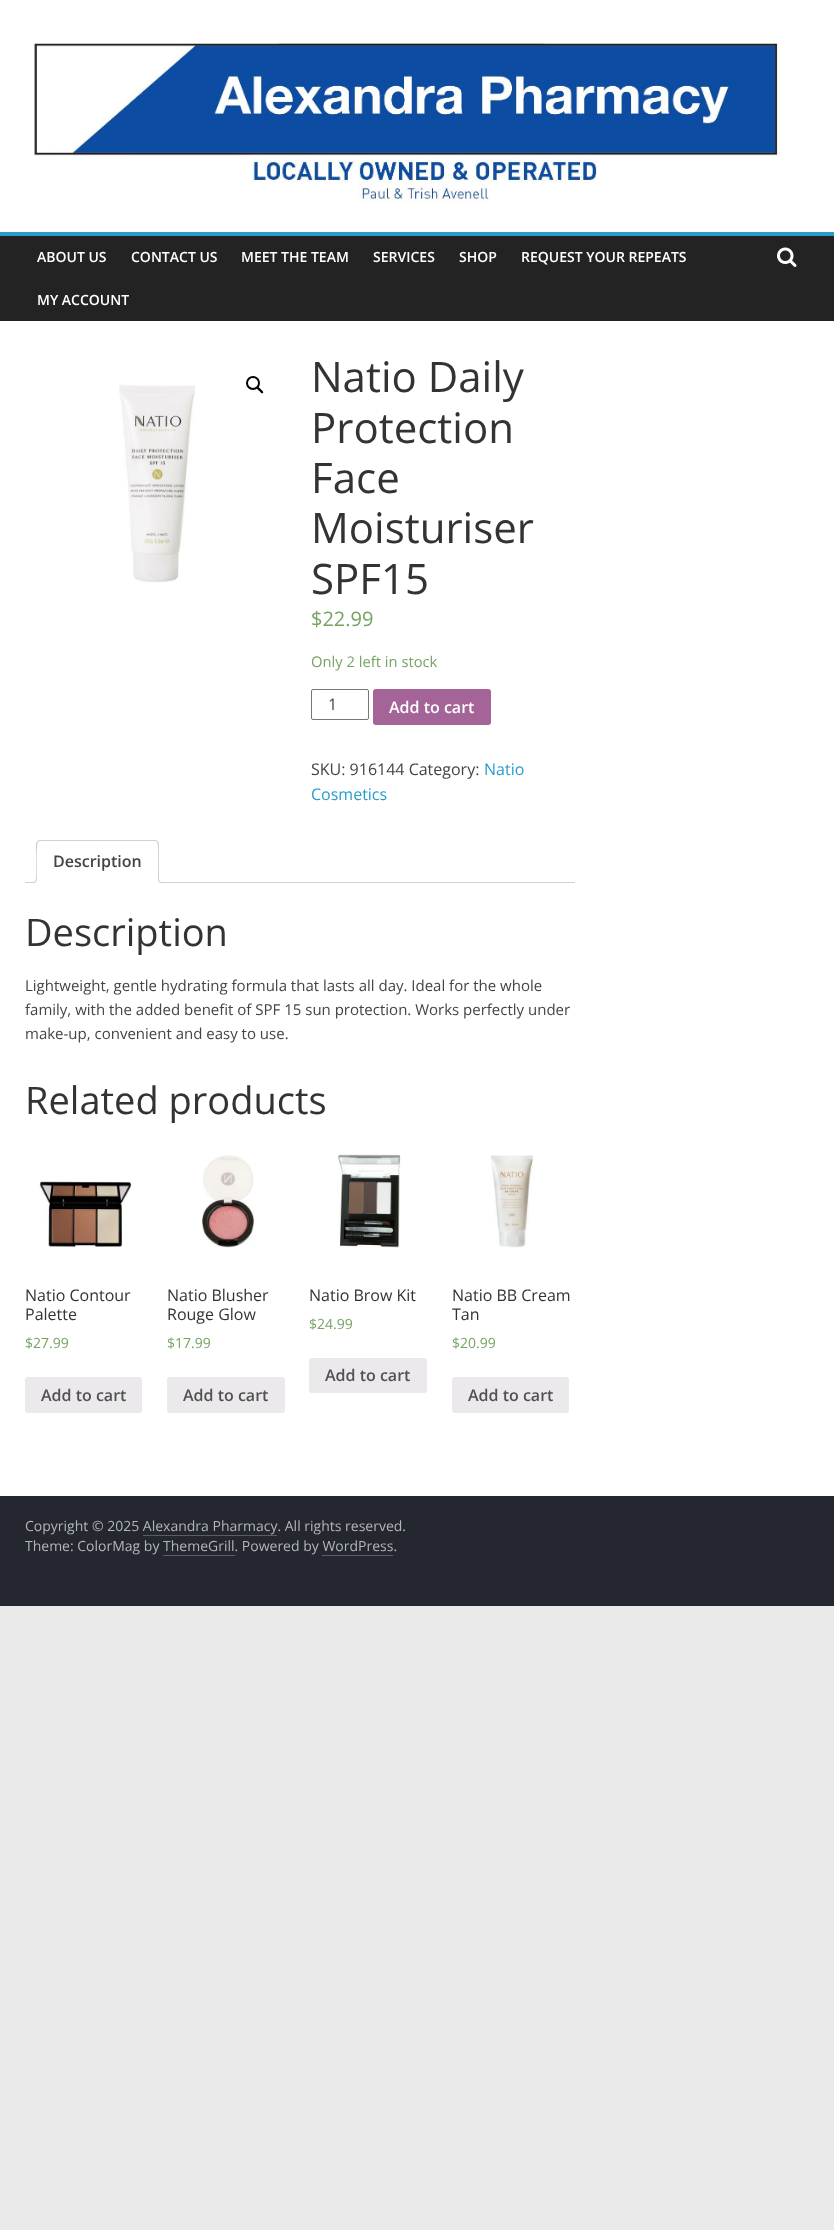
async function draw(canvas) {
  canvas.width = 834
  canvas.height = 2230
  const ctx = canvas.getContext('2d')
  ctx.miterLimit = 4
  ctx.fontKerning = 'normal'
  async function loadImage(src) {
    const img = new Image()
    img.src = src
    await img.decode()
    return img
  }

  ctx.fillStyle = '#eaeaea'
  ctx.fillRect(0, 0, 834, 2230)
  ctx.fillStyle = '#fff'
  ctx.fillRect(0, 0, 834, 232)
  ctx.drawImage(await loadImage('image0.png'), 34, 40, 746, 164)
  ctx.fillStyle = '#232323'
  ctx.fillRect(0, 236, 834, 85)
  ctx.fillStyle = '#289dcc'
  ctx.fillRect(0, 232, 834, 4)
  ctx.font = '600 14px Open Sans'
  ctx.fillStyle = '#fff'
  ctx.fillText('ABOUT US', 37, 262)
  ctx.fillText('CONTACT US', 131, 262)
  ctx.fillText('MEET THE TEAM', 241, 262)
  ctx.fillText('SERVICES', 373, 262)
  ctx.fillText('SHOP', 459, 262)
  ctx.fillText('REQUEST YOUR REPEATS', 521, 262)
  ctx.fillText('MY ACCOUNT', 37, 305)
  ctx.drawImage(await loadImage('image1.png'), 777, 247, 20, 20)
  ctx.fillRect(0, 321, 834, 1175)
  ctx.drawImage(await loadImage('image2.png'), 119, 384, 76, 199)
  ctx.beginPath()
  ctx.arc(253, 383, 6, 0, 2 * Math.PI)
  ctx.strokeStyle = '#000'
  ctx.lineWidth = 2
  ctx.stroke()
  ctx.fillStyle = '#000'
  ctx.beginPath()
  ctx.moveTo(257, 387.5)
  ctx.bezierCurveTo(258.5, 386, 260, 389, 261, 389.5)
  ctx.bezierCurveTo(261.5, 390, 264, 392, 263, 393)
  ctx.bezierCurveTo(261.5, 394.5, 260, 391.5, 259.5, 391)
  ctx.bezierCurveTo(259, 390.5, 256, 388.5, 257, 387.5)
  ctx.closePath()
  ctx.fill()
  ctx.font = '42px Open Sans'
  ctx.fillStyle = '#333'
  ctx.fillText('Natio Daily', 311, 392)
  ctx.fillText('Protection', 311, 443)
  ctx.fillText('Face', 311, 493)
  ctx.fillText('Moisturiser', 311, 543)
  ctx.fillText('SPF15', 311, 594)
  ctx.font = '20px Open Sans'
  ctx.fillStyle = '#77a464'
  ctx.fillText('$22.99', 311, 626)
  ctx.font = '14.75px Open Sans'
  ctx.fillText('Only 2 left in stock', 311, 667)
  ctx.beginPath()
  ctx.roundRect(311.5, 689.5, 57, 30, 1.5)
  ctx.strokeStyle = '#767676'
  ctx.lineWidth = 1
  ctx.stroke()
  ctx.font = '16px Open Sans'
  ctx.fillStyle = '#444'
  ctx.fillText('1', 328, 710)
  ctx.fillStyle = '#a46497'
  ctx.beginPath()
  ctx.roundRect(373, 689, 118, 36, 3)
  ctx.fill()
  ctx.font = '600 16px Open Sans'
  ctx.fillStyle = '#fff'
  ctx.fillText('Add to cart', 389, 713)
  ctx.font = '16px Open Sans'
  ctx.fillStyle = '#444'
  ctx.fillText('SKU: 916144 Category:', 311, 775)
  ctx.fillStyle = '#289dcc'
  ctx.fillText('Natio', 484, 775)
  ctx.fillText('Cosmetics', 311, 800)
  ctx.fillStyle = '#d3ced2'
  ctx.fillRect(25, 882, 550, 1)
  ctx.fillStyle = '#fff'
  ctx.beginPath()
  ctx.roundRect(36, 840, 123, 43, [4, 4, 0, 0])
  ctx.fill()
  ctx.fillStyle = '#d3ced2'
  ctx.beginPath()
  ctx.moveTo(40, 840)
  ctx.lineTo(37, 841)
  ctx.lineTo(38, 842)
  ctx.lineTo(40, 841)
  ctx.lineTo(155, 841)
  ctx.lineTo(157, 842)
  ctx.lineTo(158, 841)
  ctx.lineTo(155, 840)
  ctx.closePath()
  ctx.fill()
  ctx.beginPath()
  ctx.moveTo(159, 883)
  ctx.lineTo(159, 844)
  ctx.bezierCurveTo(159, 843, 158, 842, 158, 841)
  ctx.lineTo(157, 842)
  ctx.bezierCurveTo(159, 844, 158, 877, 158, 882)
  ctx.closePath()
  ctx.fill()
  ctx.fillStyle = '#fff'
  ctx.beginPath()
  ctx.moveTo(159, 883)
  ctx.lineTo(158, 882)
  ctx.lineTo(37, 882)
  ctx.lineTo(36, 883)
  ctx.closePath()
  ctx.fill()
  ctx.fillStyle = '#d3ced2'
  ctx.beginPath()
  ctx.moveTo(36, 883)
  ctx.lineTo(37, 882)
  ctx.bezierCurveTo(37, 877, 36, 844, 38, 842)
  ctx.lineTo(37, 841)
  ctx.lineTo(36, 844)
  ctx.closePath()
  ctx.fill()
  ctx.font = '600 16px Open Sans'
  ctx.fillStyle = '#444'
  ctx.fillText('Description', 53, 867)
  ctx.save()
  ctx.beginPath()
  ctx.rect(25, 840, 550, 43)
  ctx.clip()
  ctx.fillStyle = '#fff'
  ctx.beginPath()
  ctx.moveTo(34, 883)
  ctx.lineTo(34, 885)
  ctx.bezierCurveTo(37.5, 885, 39, 883.5, 39, 880)
  ctx.lineTo(37, 880)
  ctx.bezierCurveTo(36.5, 881.5, 35.5, 882.5, 34, 883)
  ctx.closePath()
  ctx.fill()
  ctx.restore()
  ctx.fillStyle = '#d3ced2'
  ctx.beginPath()
  ctx.moveTo(32, 878)
  ctx.lineTo(37, 878)
  ctx.bezierCurveTo(37, 881.5, 35.5, 883, 32, 883)
  ctx.closePath()
  ctx.moveTo(32, 878)
  ctx.lineTo(36, 878)
  ctx.bezierCurveTo(36, 881, 35, 882, 32, 882)
  ctx.closePath()
  ctx.fill('evenodd')
  ctx.save()
  ctx.beginPath()
  ctx.rect(25, 840, 550, 43)
  ctx.clip()
  ctx.fillStyle = '#fff'
  ctx.beginPath()
  ctx.moveTo(156, 880)
  ctx.bezierCurveTo(156, 883.5, 157.5, 885, 161, 885)
  ctx.lineTo(161, 883)
  ctx.bezierCurveTo(159.5, 882.5, 158.5, 881.5, 158, 880)
  ctx.closePath()
  ctx.fill()
  ctx.restore()
  ctx.beginPath()
  ctx.moveTo(158, 878)
  ctx.lineTo(163, 878)
  ctx.lineTo(163, 883)
  ctx.bezierCurveTo(160.5, 883, 158, 882, 158, 879)
  ctx.closePath()
  ctx.moveTo(159, 878)
  ctx.lineTo(163, 878)
  ctx.lineTo(163, 882)
  ctx.bezierCurveTo(161, 882, 159, 881.5, 159, 879)
  ctx.closePath()
  ctx.fill('evenodd')
  ctx.font = '38px Open Sans'
  ctx.fillStyle = '#333'
  ctx.fillText('Description', 25, 946)
  ctx.font = '15px Open Sans'
  ctx.fillStyle = '#444'
  ctx.fillText('Lightweight, gentle hydrating formula that lasts all day. Ideal for the whole', 25, 991)
  ctx.fillText('family, with the added benefit of SPF 15 sun protection. Works perfectly under', 25, 1015)
  ctx.fillText('make-up, convenient and easy to use.', 25, 1039)
  ctx.font = '38px Open Sans'
  ctx.fillStyle = '#333'
  ctx.fillText('Related products', 25, 1114)
  ctx.drawImage(await loadImage('image3.png'), 39, 1181, 93, 66)
  ctx.font = '16px Open Sans'
  ctx.fillText('Natio Contour', 25, 1301)
  ctx.fillText('Palette', 25, 1320)
  ctx.font = '14px Open Sans'
  ctx.fillStyle = '#77a464'
  ctx.fillText('$27.99', 25, 1348)
  ctx.fillStyle = '#ebe9eb'
  ctx.beginPath()
  ctx.roundRect(25, 1377, 117, 36, 3)
  ctx.fill()
  ctx.font = '600 16px Open Sans'
  ctx.fillStyle = '#515151'
  ctx.fillText('Add to cart', 41, 1401)
  ctx.drawImage(await loadImage('image4.png'), 202, 1154, 53, 94)
  ctx.font = '16px Open Sans'
  ctx.fillStyle = '#333'
  ctx.fillText('Natio Blusher', 167, 1301)
  ctx.fillText('Rouge Glow', 167, 1320)
  ctx.font = '14px Open Sans'
  ctx.fillStyle = '#77a464'
  ctx.fillText('$17.99', 167, 1348)
  ctx.fillStyle = '#ebe9eb'
  ctx.beginPath()
  ctx.roundRect(167, 1377, 118, 36, 3)
  ctx.fill()
  ctx.font = '600 16px Open Sans'
  ctx.fillStyle = '#515151'
  ctx.fillText('Add to cart', 183, 1401)
  ctx.drawImage(await loadImage('image5.png'), 337, 1154, 64, 94)
  ctx.font = '16px Open Sans'
  ctx.fillStyle = '#333'
  ctx.fillText('Natio Brow Kit', 309, 1301)
  ctx.font = '14px Open Sans'
  ctx.fillStyle = '#77a464'
  ctx.fillText('$24.99', 309, 1329)
  ctx.fillStyle = '#ebe9eb'
  ctx.beginPath()
  ctx.roundRect(309, 1358, 118, 35, 3)
  ctx.fill()
  ctx.font = '600 16px Open Sans'
  ctx.fillStyle = '#515151'
  ctx.fillText('Add to cart', 325, 1381)
  ctx.drawImage(await loadImage('image6.png'), 490, 1155, 44, 93)
  ctx.font = '16px Open Sans'
  ctx.fillStyle = '#333'
  ctx.fillText('Natio BB Cream', 452, 1301)
  ctx.fillText('Tan', 452, 1320)
  ctx.font = '14px Open Sans'
  ctx.fillStyle = '#77a464'
  ctx.fillText('$20.99', 452, 1348)
  ctx.fillStyle = '#ebe9eb'
  ctx.beginPath()
  ctx.roundRect(452, 1377, 117, 36, 3)
  ctx.fill()
  ctx.font = '600 16px Open Sans'
  ctx.fillStyle = '#515151'
  ctx.fillText('Add to cart', 468, 1401)
  ctx.fillStyle = '#252730'
  ctx.fillRect(0, 1496, 834, 110)
  ctx.font = '14px Open Sans'
  ctx.fillStyle = '#b1b6b6'
  ctx.fillText('Copyright © 2025 Alexandra Pharmacy. All rights reserved.', 25, 1531)
  ctx.fillStyle = '#5a5d62'
  ctx.fillRect(143, 1535, 134, 1)
  ctx.fillStyle = '#b1b6b6'
  ctx.fillText('Theme: ColorMag by ThemeGrill. Powered by WordPress.', 25, 1551)
  ctx.fillStyle = '#5a5d62'
  ctx.fillRect(163, 1555, 72, 1)
  ctx.fillRect(322, 1555, 71, 1)
}

draw(document.querySelector('canvas'))
